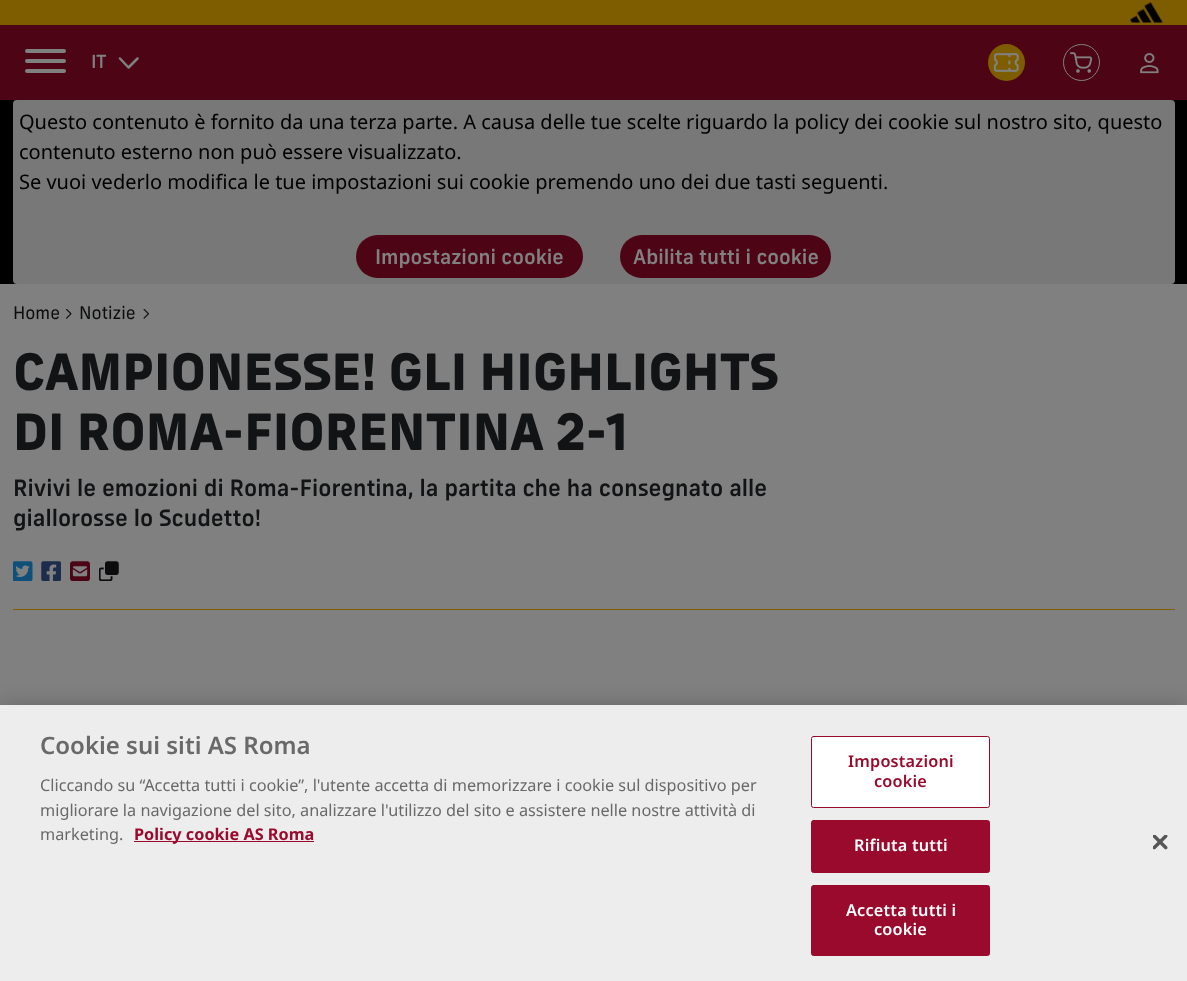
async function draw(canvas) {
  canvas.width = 1187
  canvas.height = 981
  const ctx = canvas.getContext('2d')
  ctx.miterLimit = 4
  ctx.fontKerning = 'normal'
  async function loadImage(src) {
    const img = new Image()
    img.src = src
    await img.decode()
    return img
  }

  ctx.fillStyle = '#808080'
  ctx.fillRect(0, 0, 1187, 981)
  ctx.fillStyle = '#4d0516'
  ctx.fillRect(0, 25, 1187, 75)
  ctx.fillStyle = '#7e5d00'
  ctx.fillRect(0, 0, 1187, 25)
  ctx.drawImage(await loadImage('image0.png'), 1130, 2, 33, 21)
  ctx.fillStyle = '#808080'
  ctx.beginPath()
  ctx.roundRect(25, 49, 41, 4, 2)
  ctx.fill()
  ctx.beginPath()
  ctx.roundRect(25, 59, 41, 4, 2)
  ctx.fill()
  ctx.beginPath()
  ctx.roundRect(25, 69, 41, 4, 2)
  ctx.fill()
  ctx.font = 'bold 17.5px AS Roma'
  ctx.fillText('IT', 91, 68)
  ctx.beginPath()
  ctx.moveTo(137.5, 58.5)
  ctx.lineTo(128.5, 67.5)
  ctx.lineTo(120, 58.5)
  ctx.strokeStyle = '#808080'
  ctx.lineWidth = 2.5
  ctx.lineCap = 'round'
  ctx.lineJoin = 'round'
  ctx.stroke()
  ctx.fillStyle = '#7e5d00'
  ctx.beginPath()
  ctx.arc(1006.5, 62.5, 18.5, 0, 2 * Math.PI)
  ctx.fill()
  ctx.drawImage(await loadImage('image1.png'), 994, 53, 25, 19)
  ctx.beginPath()
  ctx.arc(1081.5, 62.5, 18, 0, 2 * Math.PI)
  ctx.lineWidth = 1
  ctx.stroke()
  ctx.fillStyle = '#4d0516'
  ctx.fillRect(1069, 50, 25, 25)
  ctx.drawImage(await loadImage('image2.png'), 1070, 52, 23, 21)
  ctx.drawImage(await loadImage('image3.png'), 1140, 53, 19, 21)
  ctx.fillStyle = '#000'
  ctx.fillRect(0, 100, 1187, 184)
  ctx.fillStyle = '#787878'
  ctx.beginPath()
  ctx.roundRect(13, 100, 1162, 184, 4)
  ctx.fill()
  ctx.font = '20px Noto Sans'
  ctx.fillStyle = '#000'
  ctx.fillText('Questo contenuto è fornito da una terza parte. A causa delle tue scelte riguardo la policy dei cookie sul nostro sito, questo', 19, 129)
  ctx.fillText('contenuto esterno non può essere visualizzato.', 19, 159)
  ctx.fillText('Se vuoi vederlo modifica le tue impostazioni sui cookie premendo uno dei due tasti seguenti.', 19, 189)
  ctx.fillStyle = '#4d0516'
  ctx.beginPath()
  ctx.roundRect(356, 235, 227, 43, 21.5)
  ctx.fill()
  ctx.font = '500 20px AS Roma'
  ctx.fillStyle = '#808080'
  ctx.fillText('Impostazioni cookie', 375, 264)
  ctx.fillStyle = '#4d0516'
  ctx.beginPath()
  ctx.roundRect(620, 235, 211, 43, 21.5)
  ctx.fill()
  ctx.fillStyle = '#808080'
  ctx.fillText('Abilita tutti i cookie', 633, 264)
  ctx.font = '17.5px AS Roma'
  ctx.fillStyle = '#0c0d0e'
  ctx.fillText('Home', 13, 319)
  ctx.drawImage(await loadImage('image4.png'), 66, 309, 6, 10)
  ctx.fillText('Notizie', 79, 319)
  ctx.drawImage(await loadImage('image5.png'), 143, 309, 6, 10)
  ctx.font = '800 50px AS Roma'
  ctx.fillStyle = '#111315'
  ctx.fillText('CAMPIONESSE! GLI HIGHLIGHTS', 13, 390)
  ctx.fillText('DI ROMA-FIORENTINA 2-1', 13, 450)
  ctx.font = '500 22.5px AS Roma'
  ctx.fillText('Rivivi le emozioni di Roma-Fiorentina, la partita che ha consegnato alle', 13, 496)
  ctx.fillText('giallorosse lo Scudetto!', 13, 526)
  ctx.drawImage(await loadImage('image6.png'), 13, 561, 20, 20)
  ctx.drawImage(await loadImage('image7.png'), 41, 561, 20, 20)
  ctx.drawImage(await loadImage('image8.png'), 70, 561, 20, 20)
  ctx.drawImage(await loadImage('image9.png'), 99, 561, 20, 20)
  ctx.fillStyle = '#7e5d00'
  ctx.fillRect(13, 609, 1162, 1)
  ctx.fillStyle = '#00000033'
  ctx.filter = 'blur(11px)'
  ctx.beginPath()
  ctx.rect(0, 705, 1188, 276)
  ctx.fill()
  ctx.filter = 'none'
  ctx.fillStyle = '#ededed'
  ctx.fillRect(0, 705, 1187, 276)
  ctx.font = '600 24px Noto Sans'
  ctx.fillStyle = '#696969'
  ctx.fillText('Cookie sui siti AS Roma', 40, 754)
  ctx.font = '16.25px Noto Sans'
  ctx.fillText('Cliccando su “Accetta tutti i cookie”, l\'utente accetta di memorizzare i cookie sul dispositivo per', 40, 791)
  ctx.fillText('migliorare la navigazione del sito, analizzare l\'utilizzo del sito e assistere nelle nostre attività di', 40, 816)
  ctx.fillText('marketing.', 40, 840)
  ctx.fillStyle = '#990a2c'
  ctx.fillRect(134, 841, 180, 1)
  ctx.font = 'bold 16.25px Noto Sans'
  ctx.fillText('Policy cookie AS Roma', 134, 840)
  ctx.fillStyle = '#fff'
  ctx.beginPath()
  ctx.roundRect(811.5, 736.5, 178, 71, 2)
  ctx.fill()
  ctx.strokeStyle = '#990a2c'
  ctx.lineJoin = 'miter'
  ctx.stroke()
  ctx.letterSpacing = '0.2px'
  ctx.font = '600 16.25px Noto Sans'
  ctx.fillStyle = '#990a2c'
  ctx.fillText('Impostazioni', 848, 767)
  ctx.fillText('cookie', 874, 787)
  ctx.beginPath()
  ctx.roundRect(811.5, 820.5, 178, 52, 2)
  ctx.fill()
  ctx.stroke()
  ctx.fillStyle = '#fff'
  ctx.fillText('Rifiuta tutti', 854, 851)
  ctx.fillStyle = '#990a2c'
  ctx.beginPath()
  ctx.roundRect(811.5, 885.5, 178, 70, 2)
  ctx.fill()
  ctx.stroke()
  ctx.fillStyle = '#fff'
  ctx.fillText('Accetta tutti i', 846, 916)
  ctx.fillText('cookie', 874, 935)
  ctx.drawImage(await loadImage('image10.png'), 1153, 835, 15, 15)
}

draw(document.querySelector('canvas'))
